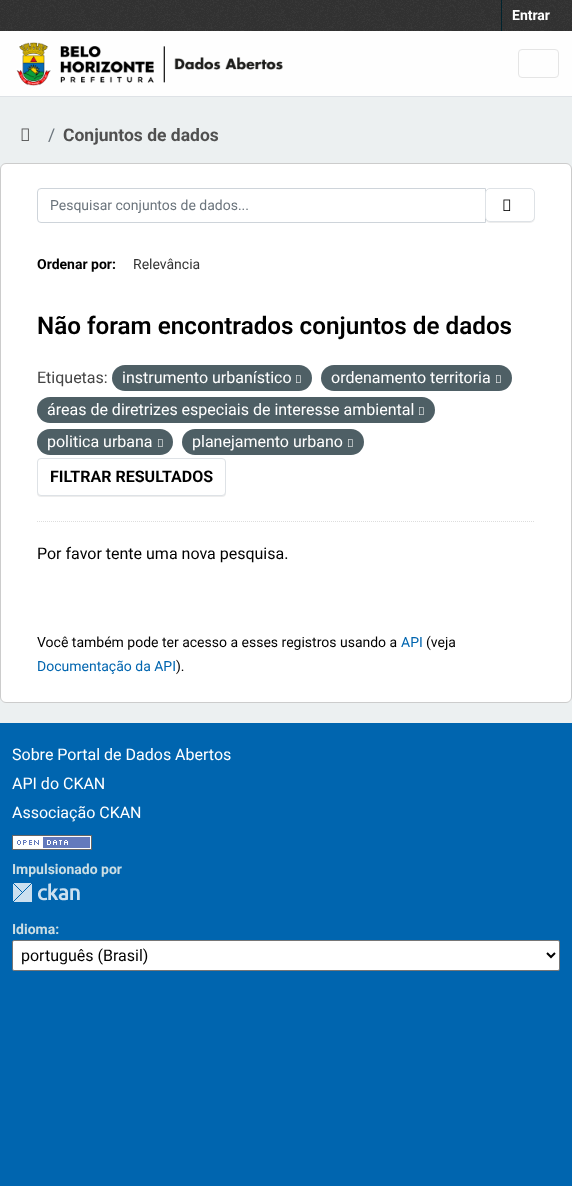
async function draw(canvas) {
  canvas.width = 572
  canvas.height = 1186
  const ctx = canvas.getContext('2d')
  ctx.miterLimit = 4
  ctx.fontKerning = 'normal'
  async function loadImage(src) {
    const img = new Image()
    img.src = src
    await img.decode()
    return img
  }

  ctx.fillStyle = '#0065af'
  ctx.fillRect(0, 0, 572, 1186)
  ctx.fillStyle = '#ecf0f1'
  ctx.fillRect(0, 97, 572, 626)
  ctx.fillStyle = '#333'
  ctx.fillRect(0, 0, 572, 31)
  ctx.drawImage(await loadImage('image0.png'), 0, 0, 572, 31)
  ctx.fillStyle = '#00232e'
  ctx.fillRect(501, 0, 1, 31)
  ctx.font = 'bold 14px Roboto'
  ctx.fillStyle = '#fff'
  ctx.fillText('Entrar', 512, 20)
  ctx.fillStyle = '#fefefe'
  ctx.fillRect(0, 31, 572, 65)
  ctx.fillStyle = '#dee2e6'
  ctx.fillRect(0, 96, 572, 1)
  ctx.drawImage(await loadImage('image1.png'), 16, 42, 267, 44)
  ctx.beginPath()
  ctx.roundRect(518.5, 49.5, 40, 28, 3.5)
  ctx.strokeStyle = '#e5e5e5'
  ctx.stroke()
  ctx.drawImage(await loadImage('image2.png'), 21, 128, 8, 13)
  ctx.font = '17.5px Roboto'
  ctx.fillStyle = '#6c757d'
  ctx.fillText('/', 48, 141)
  ctx.font = 'bold 17.5px Roboto'
  ctx.fillStyle = '#505050'
  ctx.fillText('Conjuntos de dados', 63, 141)
  ctx.fillStyle = '#fff'
  ctx.beginPath()
  ctx.roundRect(0.5, 163.5, 571, 539, 5.5)
  ctx.fill()
  ctx.strokeStyle = '#ccc'
  ctx.stroke()
  ctx.beginPath()
  ctx.moveTo(37, 521.5)
  ctx.lineTo(535, 521.5)
  ctx.strokeStyle = '#ddd'
  ctx.setLineDash([1, 1])
  ctx.stroke()
  ctx.beginPath()
  ctx.roundRect(37.5, 188.5, 448, 34, [3.5, 0, 0, 3.5])
  ctx.strokeStyle = '#ced4da'
  ctx.setLineDash([])
  ctx.stroke()
  ctx.font = '14px Roboto'
  ctx.fillStyle = '#6c757d'
  ctx.fillText('Pesquisar conjuntos de dados...', 50, 210)
  ctx.fillStyle = '#00000012'
  ctx.filter = 'blur(0.5px)'
  ctx.beginPath()
  ctx.roundRect(485, 189, 50, 34, 5)
  ctx.fill()
  ctx.filter = 'none'
  ctx.fillStyle = '#fff'
  ctx.beginPath()
  ctx.roundRect(485.5, 188.5, 49, 33, 4.5)
  ctx.fill()
  ctx.strokeStyle = '#dee2e6'
  ctx.stroke()
  ctx.drawImage(await loadImage('image3.png'), 503, 199, 8, 12)
  ctx.font = 'bold 14px Roboto'
  ctx.fillStyle = '#000'
  ctx.fillText('Ordenar por:', 37, 269)
  ctx.font = '14px Roboto'
  ctx.fillStyle = '#333'
  ctx.fillText('Relevância', 133, 269)
  ctx.font = '600 24.25px Roboto'
  ctx.fillStyle = '#000'
  ctx.fillText('Não foram encontrados conjuntos de dados', 37, 334)
  ctx.font = '16px Roboto'
  ctx.fillStyle = '#444'
  ctx.fillText('Etiquetas:', 37, 383)
  ctx.fillStyle = '#4e5f65'
  ctx.beginPath()
  ctx.roundRect(112, 365, 200, 26, 13)
  ctx.fill()
  ctx.fillStyle = '#fff'
  ctx.fillText('instrumento urbanístico', 122, 383)
  ctx.drawImage(await loadImage('image4.png'), 296, 375, 5, 8)
  ctx.fillStyle = '#4e5f65'
  ctx.beginPath()
  ctx.roundRect(321, 365, 191, 26, 13)
  ctx.fill()
  ctx.fillStyle = '#fff'
  ctx.fillText('ordenamento territoria', 331, 383)
  ctx.drawImage(await loadImage('image4.png'), 496, 375, 5, 8)
  ctx.fillStyle = '#4e5f65'
  ctx.beginPath()
  ctx.roundRect(37, 397, 398, 26, 13)
  ctx.fill()
  ctx.fillStyle = '#fff'
  ctx.fillText('áreas de diretrizes especiais de interesse ambiental', 47, 415)
  ctx.drawImage(await loadImage('image4.png'), 419, 407, 5, 8)
  ctx.fillStyle = '#4e5f65'
  ctx.beginPath()
  ctx.roundRect(37, 429, 136, 26, 13)
  ctx.fill()
  ctx.fillStyle = '#fff'
  ctx.fillText('politica urbana', 47, 447)
  ctx.drawImage(await loadImage('image4.png'), 158, 439, 5, 8)
  ctx.fillStyle = '#4e5f65'
  ctx.beginPath()
  ctx.roundRect(182, 429, 182, 26, 13)
  ctx.fill()
  ctx.fillStyle = '#fff'
  ctx.fillText('planejamento urbano', 192, 447)
  ctx.drawImage(await loadImage('image4.png'), 348, 439, 5, 8)
  ctx.fillStyle = '#00000012'
  ctx.filter = 'blur(0.5px)'
  ctx.beginPath()
  ctx.roundRect(37, 459, 189, 38, 4)
  ctx.fill()
  ctx.filter = 'none'
  ctx.fillStyle = '#fff'
  ctx.beginPath()
  ctx.roundRect(37.5, 458.5, 188, 37, 3.5)
  ctx.fill()
  ctx.stroke()
  ctx.font = 'bold 16px Roboto'
  ctx.fillStyle = '#000'
  ctx.fillText('FILTRAR RESULTADOS', 50, 482)
  ctx.font = '16px Roboto'
  ctx.fillText('Por favor tente uma nova pesquisa.', 37, 559)
  ctx.font = '14px Roboto'
  ctx.fillText('Você também pode ter acesso a esses registros usando a', 37, 647)
  ctx.fillStyle = '#0065af'
  ctx.fillText('API', 401, 647)
  ctx.fillStyle = '#000'
  ctx.fillText('(veja', 426, 647)
  ctx.fillStyle = '#0065af'
  ctx.fillText('Documentação da API', 37, 671)
  ctx.fillStyle = '#000'
  ctx.fillText(').', 176, 671)
  ctx.font = '16px Roboto'
  ctx.fillStyle = '#fff'
  ctx.fillText('Sobre Portal de Dados Abertos', 12, 760)
  ctx.fillText('API do CKAN', 12, 789)
  ctx.fillText('Associação CKAN', 12, 818)
  ctx.drawImage(await loadImage('image5.png'), 12, 835, 80, 15)
  ctx.font = 'bold 14px Roboto'
  ctx.fillStyle = '#ccdee3'
  ctx.fillText('Impulsionado por', 12, 874)
  ctx.drawImage(await loadImage('image6.png'), 13, 883, 67, 19)
  ctx.fillText('Idioma:', 12, 934)
  ctx.fillStyle = '#fff'
  ctx.beginPath()
  ctx.roundRect(12.5, 940.5, 547, 30, 1.5)
  ctx.fill()
  ctx.strokeStyle = '#767676'
  ctx.stroke()
  ctx.beginPath()
  ctx.moveTo(547, 953)
  ctx.lineTo(551, 957)
  ctx.lineTo(555, 953)
  ctx.strokeStyle = '#000'
  ctx.lineWidth = 2
  ctx.stroke()
  ctx.font = '16px Roboto'
  ctx.fillStyle = '#000'
  ctx.fillText('português (Brasil)', 21, 961)
}

draw(document.querySelector('canvas'))
